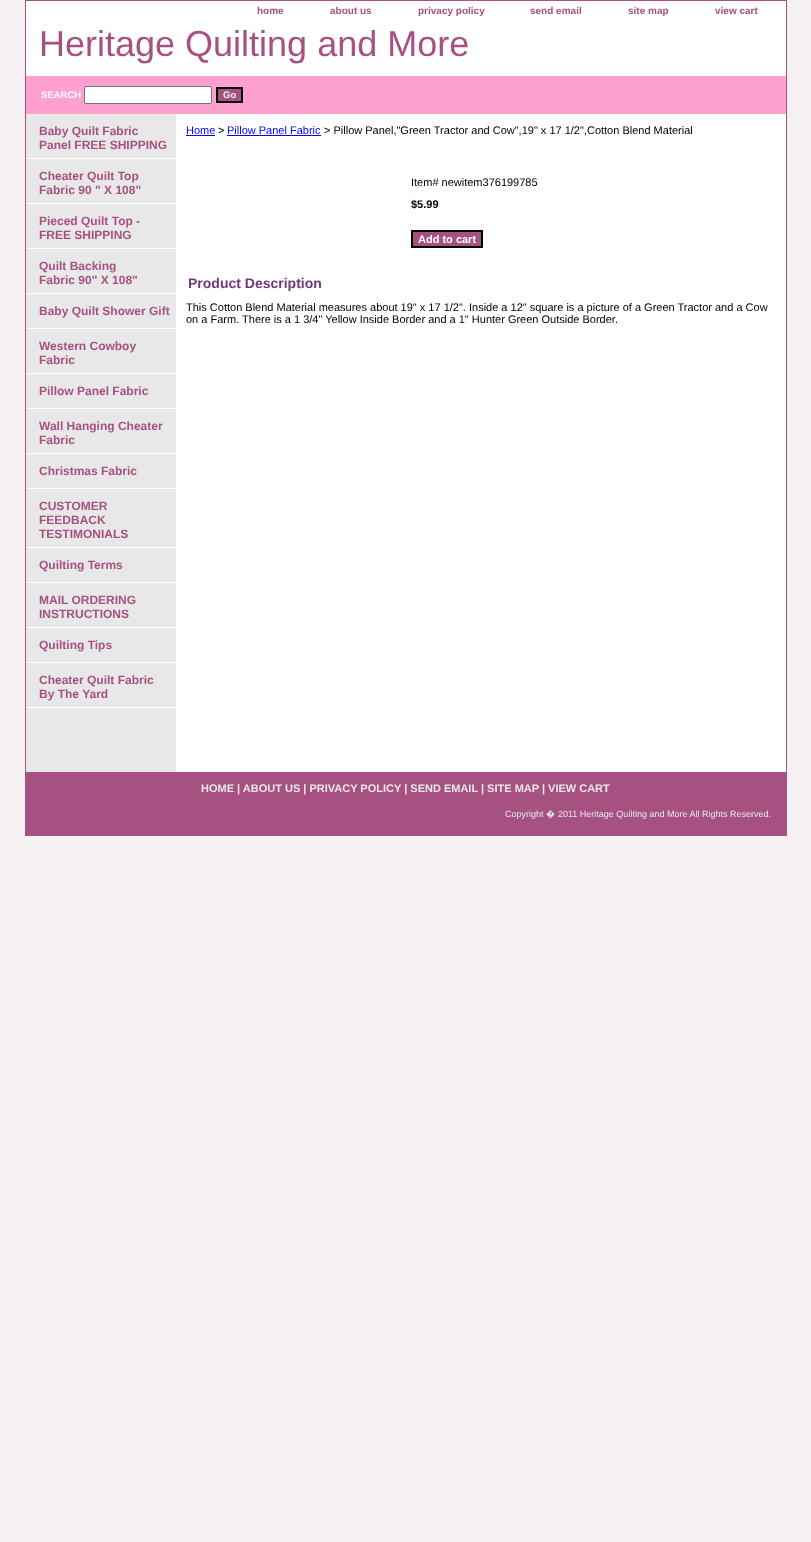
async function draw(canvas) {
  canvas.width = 811
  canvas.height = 1542
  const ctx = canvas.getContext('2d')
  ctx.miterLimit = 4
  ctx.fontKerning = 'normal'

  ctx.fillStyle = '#f5f0f2'
  ctx.fillRect(0, 0, 811, 1542)
  ctx.fillStyle = '#fff'
  ctx.fillRect(26, 1, 760, 771)
  ctx.strokeStyle = '#a75183'
  ctx.strokeRect(25.5, 0.5, 761, 835)
  ctx.font = 'bold 10px Liberation Sans'
  ctx.fillStyle = '#a75183'
  ctx.fillText('home', 257, 14)
  ctx.fillText('about us', 330, 14)
  ctx.fillText('privacy policy', 418, 14)
  ctx.fillText('send email', 530, 14)
  ctx.fillText('site map', 628, 14)
  ctx.fillText('view cart', 715, 14)
  ctx.font = '36px Liberation Sans'
  ctx.fillText('Heritage Quilting and More', 39, 56)
  ctx.fillStyle = '#ffa1d0'
  ctx.fillRect(26, 76, 760, 38)
  ctx.font = 'bold 9.5px Liberation Sans'
  ctx.fillStyle = '#fff'
  ctx.fillText('SEARCH', 41, 98)
  ctx.beginPath()
  ctx.roundRect(84.5, 86.5, 127, 17, 1.5)
  ctx.fill()
  ctx.strokeStyle = '#767676'
  ctx.stroke()
  ctx.fillStyle = '#a75183'
  ctx.beginPath()
  ctx.rect(217, 88, 25, 14)
  ctx.fill()
  ctx.strokeStyle = '#000'
  ctx.lineWidth = 2
  ctx.stroke()
  ctx.fillStyle = '#e8e8e8'
  ctx.fillText('Go', 223, 98)
  ctx.fillRect(26, 114, 150, 658)
  ctx.fillStyle = '#fff'
  ctx.fillRect(26, 158, 150, 1)
  ctx.font = 'bold 12px Liberation Sans'
  ctx.fillStyle = '#a75183'
  ctx.fillText('Baby Quilt Fabric', 39, 135)
  ctx.fillText('Panel FREE SHIPPING', 39, 149)
  ctx.fillStyle = '#fff'
  ctx.fillRect(26, 203, 150, 1)
  ctx.fillStyle = '#a75183'
  ctx.fillText('Cheater Quilt Top', 39, 180)
  ctx.fillText('Fabric 90 " X 108"', 39, 194)
  ctx.fillStyle = '#fff'
  ctx.fillRect(26, 248, 150, 1)
  ctx.fillStyle = '#a75183'
  ctx.fillText('Pieced Quilt Top -', 39, 225)
  ctx.fillText('FREE SHIPPING', 39, 239)
  ctx.fillStyle = '#fff'
  ctx.fillRect(26, 293, 150, 1)
  ctx.fillStyle = '#a75183'
  ctx.fillText('Quilt Backing', 39, 270)
  ctx.fillText('Fabric 90" X 108"', 39, 284)
  ctx.fillStyle = '#fff'
  ctx.fillRect(26, 328, 150, 1)
  ctx.fillStyle = '#a75183'
  ctx.fillText('Baby Quilt Shower Gift', 39, 315)
  ctx.fillStyle = '#fff'
  ctx.fillRect(26, 373, 150, 1)
  ctx.fillStyle = '#a75183'
  ctx.fillText('Western Cowboy', 39, 350)
  ctx.fillText('Fabric', 39, 364)
  ctx.fillStyle = '#fff'
  ctx.fillRect(26, 408, 150, 1)
  ctx.fillStyle = '#a75183'
  ctx.fillText('Pillow Panel Fabric', 39, 395)
  ctx.fillStyle = '#fff'
  ctx.fillRect(26, 453, 150, 1)
  ctx.fillStyle = '#a75183'
  ctx.fillText('Wall Hanging Cheater', 39, 430)
  ctx.fillText('Fabric', 39, 444)
  ctx.fillStyle = '#fff'
  ctx.fillRect(26, 488, 150, 1)
  ctx.fillStyle = '#a75183'
  ctx.fillText('Christmas Fabric', 39, 475)
  ctx.fillStyle = '#fff'
  ctx.fillRect(26, 547, 150, 1)
  ctx.fillStyle = '#a75183'
  ctx.fillText('CUSTOMER', 39, 510)
  ctx.fillText('FEEDBACK', 39, 524)
  ctx.fillText('TESTIMONIALS', 39, 538)
  ctx.fillStyle = '#fff'
  ctx.fillRect(26, 582, 150, 1)
  ctx.fillStyle = '#a75183'
  ctx.fillText('Quilting Terms', 39, 569)
  ctx.fillStyle = '#fff'
  ctx.fillRect(26, 627, 150, 1)
  ctx.fillStyle = '#a75183'
  ctx.fillText('MAIL ORDERING', 39, 604)
  ctx.fillText('INSTRUCTIONS', 39, 618)
  ctx.fillStyle = '#fff'
  ctx.fillRect(26, 662, 150, 1)
  ctx.fillStyle = '#a75183'
  ctx.fillText('Quilting Tips', 39, 649)
  ctx.fillStyle = '#fff'
  ctx.fillRect(26, 707, 150, 1)
  ctx.fillStyle = '#a75183'
  ctx.fillText('Cheater Quilt Fabric', 39, 684)
  ctx.fillText('By The Yard', 39, 698)
  ctx.font = '11px Liberation Sans'
  ctx.fillStyle = '#00f'
  ctx.fillText('Home', 186, 134)
  ctx.fillRect(186, 135, 29, 1)
  ctx.fillStyle = '#000'
  ctx.fillText('>', 218, 134)
  ctx.fillStyle = '#00f'
  ctx.fillText('Pillow Panel Fabric', 227, 134)
  ctx.fillRect(227, 135, 94, 1)
  ctx.fillStyle = '#000'
  ctx.fillText('> Pillow Panel,"Green Tractor and Cow",19" x 17 1/2",Cotton Blend Material', 324, 134)
  ctx.fillText('Item# newitem376199785', 411, 186)
  ctx.font = 'bold 11px Liberation Sans'
  ctx.fillText('$5.99', 411, 208)
  ctx.fillStyle = '#a75183'
  ctx.beginPath()
  ctx.rect(412, 231, 70, 16)
  ctx.fill()
  ctx.stroke()
  ctx.fillStyle = '#fff'
  ctx.fillText('Add to cart', 418, 243)
  ctx.font = 'bold 14px Liberation Sans'
  ctx.fillStyle = '#71387c'
  ctx.fillText('Product Description', 188, 288)
  ctx.font = '11px Liberation Sans'
  ctx.fillStyle = '#000'
  ctx.fillText('This Cotton Blend Material measures about 19" x 17 1/2". Inside a 12" square is a picture of a Green Tractor and a Cow', 186, 311)
  ctx.fillText('on a Farm. There is a 1 3/4" Yellow Inside Border and a 1" Hunter Green Outside Border.', 186, 323)
  ctx.fillStyle = '#a75183'
  ctx.fillRect(26, 772, 760, 63)
  ctx.font = 'bold 11px Liberation Sans'
  ctx.fillStyle = '#e8e8e8'
  ctx.fillText('HOME | ABOUT US | PRIVACY POLICY | SEND EMAIL | SITE MAP | VIEW CART', 201, 792)
  ctx.font = '9px Liberation Sans'
  ctx.fillText('Copyright', 505, 817)
  ctx.font = '9px Noto Sans'
  ctx.fillText('�', 546, 817)
  ctx.font = '9px Liberation Sans'
  ctx.fillText('2011 Heritage Quilting and More All Rights Reserved.', 558, 817)
}

draw(document.querySelector('canvas'))
